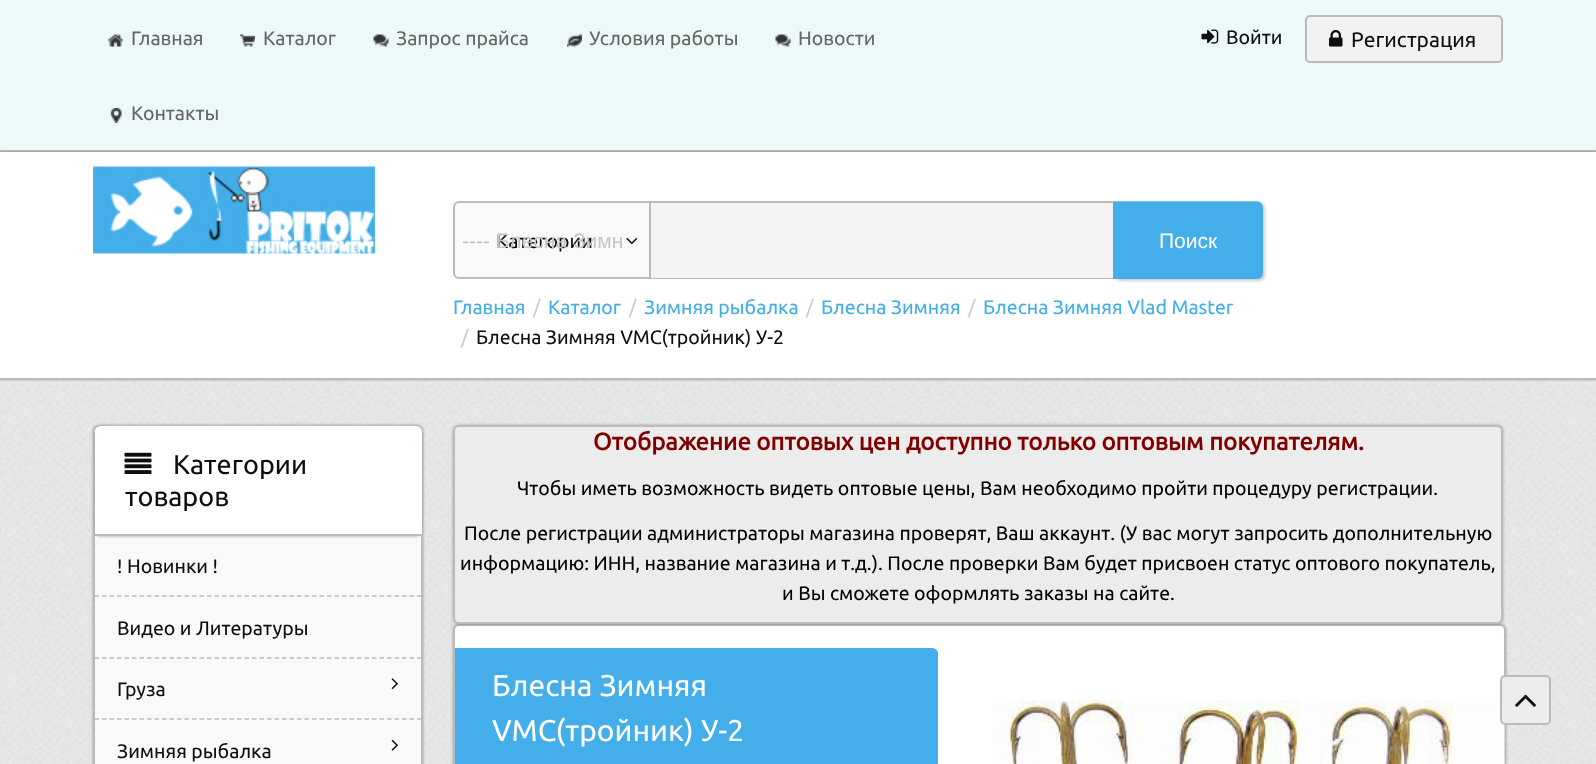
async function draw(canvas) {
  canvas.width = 1596
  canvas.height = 764
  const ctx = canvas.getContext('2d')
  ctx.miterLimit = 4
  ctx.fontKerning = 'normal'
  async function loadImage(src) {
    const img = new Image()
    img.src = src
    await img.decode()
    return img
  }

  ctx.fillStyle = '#fff'
  ctx.fillRect(0, 0, 1596, 764)
  ctx.drawImage(await loadImage('image0.png'), 0, 380, 1596, 384)
  ctx.fillStyle = '#edf8f9'
  ctx.fillRect(0, 0, 1596, 150)
  ctx.fillStyle = '#bbb'
  ctx.fillRect(0, 150, 1596, 2)
  ctx.drawImage(await loadImage('image1.png'), 108, 34, 15, 13)
  ctx.font = '19.5px Ubuntu'
  ctx.fillStyle = '#666'
  ctx.fillText('Главная', 131, 45)
  ctx.drawImage(await loadImage('image2.png'), 240, 34, 15, 13)
  ctx.fillText('Каталог', 263, 45)
  ctx.drawImage(await loadImage('image3.png'), 373, 34, 16, 13)
  ctx.fillText('Запрос прайса', 396, 45)
  ctx.drawImage(await loadImage('image4.png'), 567, 34, 15, 13)
  ctx.fillText('Условия работы', 589, 45)
  ctx.drawImage(await loadImage('image5.png'), 775, 34, 16, 13)
  ctx.fillText('Новости', 798, 45)
  ctx.drawImage(await loadImage('image6.png'), 110, 108, 12, 15)
  ctx.fillText('Контакты', 131, 120)
  ctx.drawImage(await loadImage('image7.png'), 1201, 29, 18, 15)
  ctx.fillStyle = '#0f0e0e'
  ctx.fillText('Войти', 1226, 44)
  ctx.fillStyle = '#f2f2f2'
  ctx.beginPath()
  ctx.roundRect(1306, 16, 196, 46, 4)
  ctx.fill()
  ctx.strokeStyle = '#bbb'
  ctx.lineWidth = 2
  ctx.stroke()
  ctx.drawImage(await loadImage('image8.png'), 1329, 30, 14, 17)
  ctx.font = '21px Ubuntu'
  ctx.fillStyle = '#0f0e0e'
  ctx.fillText('Регистрация', 1351, 47)
  ctx.fillStyle = '#0000004d'
  ctx.filter = 'blur(1px)'
  ctx.beginPath()
  ctx.rect(0, 152, 1596, 228)
  ctx.fill()
  ctx.filter = 'none'
  ctx.fillStyle = '#fff'
  ctx.fillRect(0, 152, 1596, 226)
  ctx.fillStyle = '#bbb'
  ctx.fillRect(0, 378, 1596, 2)
  ctx.drawImage(await loadImage('image9.png'), 93, 166, 282, 88)
  ctx.fillStyle = '#f9f9f9'
  ctx.beginPath()
  ctx.roundRect(454, 202, 196, 76, [5, 0, 0, 5])
  ctx.fill()
  ctx.stroke()
  ctx.font = '19.5px Ubuntu'
  ctx.fillStyle = '#0f0e0e'
  ctx.fillText('Категории', 496, 248)
  ctx.font = '21px Liberation Sans'
  ctx.fillStyle = '#c7c6c6'
  ctx.fillText('---- Блесна Зимн', 462, 248)
  ctx.drawImage(await loadImage('image10.png'), 626, 237, 12, 8)
  ctx.fillStyle = '#00000033'
  ctx.filter = 'blur(1.5px)'
  ctx.beginPath()
  ctx.roundRect(1115, 203, 150, 78, 6)
  ctx.fill()
  ctx.filter = 'none'
  ctx.fillStyle = '#f4f4f4'
  ctx.fillRect(651, 203, 462, 75)
  ctx.fillStyle = '#bbb'
  ctx.fillRect(651, 201, 462, 2)
  ctx.fillRect(651, 278, 462, 1)
  ctx.fillStyle = '#43aee9'
  ctx.beginPath()
  ctx.roundRect(1113, 201, 150, 78, [0, 6, 6, 0])
  ctx.fill()
  ctx.fillStyle = '#ffffff4d'
  ctx.beginPath()
  ctx.moveTo(1113, 202)
  ctx.lineTo(1257, 202)
  ctx.bezierCurveTo(1260, 202, 1263, 205, 1263, 208)
  ctx.lineTo(1263, 207)
  ctx.bezierCurveTo(1263, 204, 1260, 201, 1257, 201)
  ctx.lineTo(1113, 201)
  ctx.closePath()
  ctx.fill()
  ctx.fillStyle = '#fff'
  ctx.fillText('Поиск', 1159, 248)
  ctx.font = '19.5px Ubuntu'
  ctx.fillStyle = '#43aee9'
  ctx.fillText('Главная', 453, 314)
  ctx.fillStyle = '#ccc'
  ctx.fillText('/', 533, 314)
  ctx.fillStyle = '#43aee9'
  ctx.fillText('Каталог', 548, 314)
  ctx.fillStyle = '#ccc'
  ctx.fillText('/', 629, 314)
  ctx.fillStyle = '#43aee9'
  ctx.fillText('Зимняя рыбалка', 644, 314)
  ctx.fillStyle = '#ccc'
  ctx.fillText('/', 806, 314)
  ctx.fillStyle = '#43aee9'
  ctx.fillText('Блесна Зимняя', 821, 314)
  ctx.fillStyle = '#ccc'
  ctx.fillText('/', 968, 314)
  ctx.fillStyle = '#43aee9'
  ctx.fillText('Блесна Зимняя Vlad Master', 983, 314)
  ctx.fillStyle = '#ccc'
  ctx.fillText('/', 461, 344)
  ctx.fillStyle = '#0f0e0e'
  ctx.fillText('Блесна Зимняя VMC(тройник) У-2', 476, 344)
  ctx.fillStyle = '#0000004d'
  ctx.filter = 'blur(1.5px)'
  ctx.beginPath()
  ctx.roundRect(93, 425, 330, 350, 6)
  ctx.fill()
  ctx.filter = 'none'
  ctx.fillStyle = '#f9f9f9'
  ctx.beginPath()
  ctx.roundRect(94, 426, 328, 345, 5)
  ctx.fill()
  ctx.stroke()
  ctx.fillStyle = '#00000033'
  ctx.filter = 'blur(1px)'
  ctx.beginPath()
  ctx.roundRect(95, 428, 327, 109, 6)
  ctx.fill()
  ctx.filter = 'none'
  ctx.fillStyle = '#fff'
  ctx.beginPath()
  ctx.roundRect(95, 426, 327, 110, [6, 6, 0, 0])
  ctx.fill()
  ctx.fillStyle = '#bbb'
  ctx.fillRect(95, 534, 327, 2)
  ctx.drawImage(await loadImage('image11.png'), 124, 452, 28, 22)
  ctx.font = '27px Ubuntu'
  ctx.fillStyle = '#0f0e0e'
  ctx.fillText('Категории', 173, 474)
  ctx.fillText('товаров', 125, 506)
  ctx.beginPath()
  ctx.moveTo(94.5, 596)
  ctx.lineTo(421.5, 596)
  ctx.lineWidth = 1.5
  ctx.setLineDash([4.5, 3])
  ctx.stroke()
  ctx.font = '19.5px Ubuntu'
  ctx.fillText('! Новинки !', 117, 573)
  ctx.beginPath()
  ctx.moveTo(94.5, 658)
  ctx.lineTo(421.5, 658)
  ctx.stroke()
  ctx.fillText('Видео и Литературы', 117, 635)
  ctx.beginPath()
  ctx.moveTo(94.5, 719)
  ctx.lineTo(421.5, 719)
  ctx.stroke()
  ctx.fillText('Груза', 117, 696)
  ctx.drawImage(await loadImage('image12.png'), 391, 678, 7, 12)
  ctx.fillText('Зимняя рыбалка', 117, 758)
  ctx.drawImage(await loadImage('image13.png'), 391, 739, 7, 12)
  ctx.fillStyle = '#0000004d'
  ctx.filter = 'blur(1.5px)'
  ctx.beginPath()
  ctx.roundRect(453, 624, 1053, 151, 6)
  ctx.fill()
  ctx.filter = 'none'
  ctx.fillStyle = '#fff'
  ctx.beginPath()
  ctx.roundRect(454, 625, 1051, 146, 5)
  ctx.fill()
  ctx.lineWidth = 2
  ctx.setLineDash([])
  ctx.stroke()
  ctx.fillStyle = '#0000004d'
  ctx.filter = 'blur(1.5px)'
  ctx.beginPath()
  ctx.roundRect(453, 425, 1050, 199, 6)
  ctx.fill()
  ctx.filter = 'none'
  ctx.fillStyle = '#ececec'
  ctx.beginPath()
  ctx.roundRect(454, 426, 1048, 197, 5)
  ctx.fill()
  ctx.stroke()
  ctx.font = 'bold 24px Ubuntu'
  ctx.fillStyle = '#800000'
  ctx.fillText('Отображение оптовых цен доступно только оптовым покупателям.', 593, 450)
  ctx.font = '19.5px Ubuntu'
  ctx.fillStyle = '#000'
  ctx.fillText('Чтобы иметь возможность видеть оптовые цены, Вам необходимо пройти процедуру регистрации.', 517, 495)
  ctx.fillText('После регистрации администраторы магазина проверят, Ваш аккаунт. (У вас могут запросить дополнительную', 464, 540)
  ctx.fillText('информацию: ИНН, название магазина и т.д.). После проверки Вам будет присвоен статус оптового покупатель,', 460, 570)
  ctx.fillText('и Вы сможете оформлять заказы на сайте.', 782, 600)
  ctx.fillStyle = '#43aee9'
  ctx.beginPath()
  ctx.moveTo(455, 648)
  ctx.lineTo(932, 648)
  ctx.bezierCurveTo(935.5, 648, 938, 650.5, 938, 654)
  ctx.lineTo(938, 764)
  ctx.bezierCurveTo(938, 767.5, 935.5, 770, 932, 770)
  ctx.lineTo(455, 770)
  ctx.closePath()
  ctx.fill()
  ctx.font = '30px Ubuntu'
  ctx.fillStyle = '#fff'
  ctx.fillText('Блесна Зимняя', 492, 696)
  ctx.fillText('VMC(тройник) У-2', 492, 741)
  ctx.drawImage(await loadImage('image14.png'), 992, 700, 513, 64)
  ctx.fillStyle = '#ececec'
  ctx.beginPath()
  ctx.roundRect(1501, 676, 49, 48, 4)
  ctx.fill()
  ctx.stroke()
  ctx.drawImage(await loadImage('image15.png'), 1515, 694, 21, 13)
}

draw(document.querySelector('canvas'))
